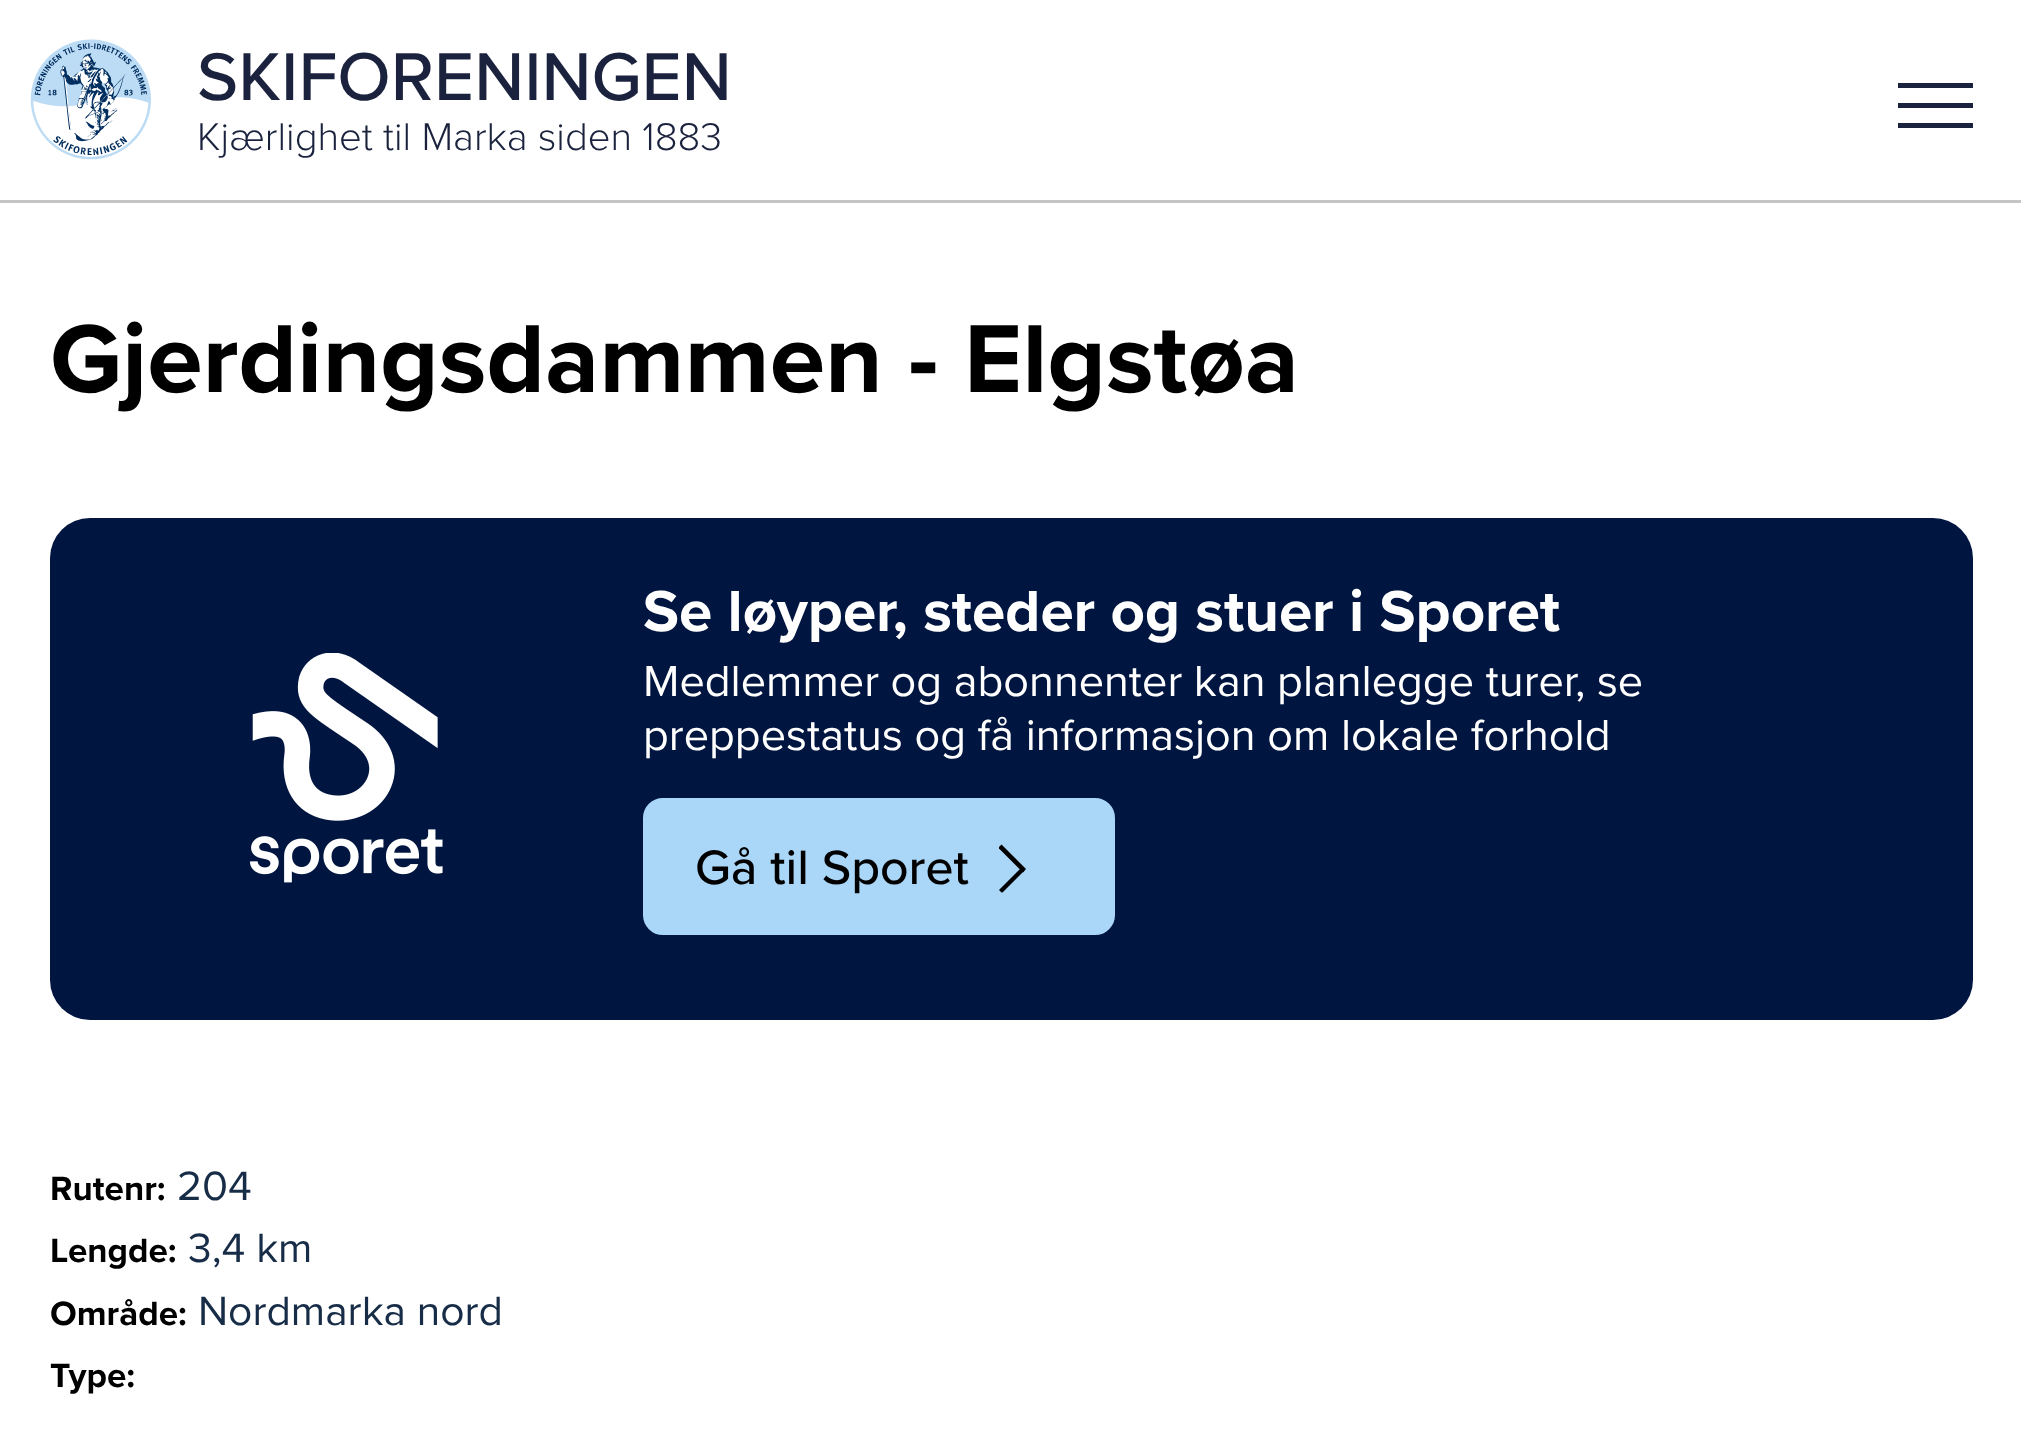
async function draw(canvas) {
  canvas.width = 2021
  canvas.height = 1445
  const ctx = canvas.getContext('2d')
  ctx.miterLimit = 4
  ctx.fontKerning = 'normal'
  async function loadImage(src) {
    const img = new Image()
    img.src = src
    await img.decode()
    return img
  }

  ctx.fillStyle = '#fff'
  ctx.fillRect(0, 0, 2021, 1445)
  ctx.fillStyle = '#c5c5c5'
  ctx.fillRect(0, 200, 2021, 3)
  ctx.drawImage(await loadImage('image0.png'), 30, 39, 121, 121)
  ctx.font = '500 70px Proxima Nova'
  ctx.fillStyle = '#1b223d'
  ctx.fillText('SKIFORENINGEN', 197, 100)
  ctx.font = '300 40px Proxima Nova'
  ctx.fillText('Kjærlighet til Marka siden 1883', 197, 150)
  ctx.fillRect(1898, 83, 75, 5)
  ctx.fillRect(1898, 103, 75, 5)
  ctx.fillRect(1898, 123, 75, 5)
  ctx.font = 'bold 100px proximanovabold'
  ctx.fillStyle = '#000'
  ctx.fillText('Gjerdingsdammen - Elgstøa', 50, 392)
  ctx.fillStyle = '#00153f'
  ctx.beginPath()
  ctx.roundRect(50, 518, 1923, 502, 40)
  ctx.fill()
  ctx.drawImage(await loadImage('image1.png'), 250, 653, 193, 230)
  ctx.font = 'bold 60px proximanovabold'
  ctx.fillStyle = '#fff'
  ctx.fillText('Se løyper, steder og stuer i Sporet', 643, 631)
  ctx.font = '45px Proxima Nova'
  ctx.fillText('Medlemmer og abonnenter kan planlegge turer, se', 643, 696)
  ctx.fillText('preppestatus og få informasjon om lokale forhold', 643, 750)
  ctx.fillStyle = '#aad7f8'
  ctx.beginPath()
  ctx.roundRect(644.5, 799.5, 469, 134, 18.5)
  ctx.fill()
  ctx.strokeStyle = '#aad7f8'
  ctx.lineWidth = 3
  ctx.stroke()
  ctx.font = '500 50px Proxima Nova'
  ctx.fillStyle = '#000'
  ctx.fillText('Gå til Sporet', 695, 884)
  ctx.beginPath()
  ctx.moveTo(999, 890)
  ctx.lineTo(1021.5, 867.5)
  ctx.lineTo(1024.5, 870.5)
  ctx.lineTo(1002.5, 892.5)
  ctx.lineTo(1001.5, 892.5)
  ctx.closePath()
  ctx.fill()
  ctx.beginPath()
  ctx.moveTo(1001.5, 844.5)
  ctx.lineTo(999, 847)
  ctx.lineTo(999, 848.5)
  ctx.lineTo(1023, 872.5)
  ctx.lineTo(1026, 869)
  ctx.closePath()
  ctx.fill()
  ctx.font = 'bold 35px proximanovabold'
  ctx.fillText('Rutenr:', 50, 1200)
  ctx.font = '42.5px Proxima Nova'
  ctx.fillStyle = '#172c47'
  ctx.fillText('204', 177, 1200)
  ctx.font = 'bold 35px proximanovabold'
  ctx.fillStyle = '#000'
  ctx.fillText('Lengde:', 50, 1262)
  ctx.font = '42.5px Proxima Nova'
  ctx.fillStyle = '#172c47'
  ctx.fillText('3,4 km', 188, 1262)
  ctx.font = 'bold 35px proximanovabold'
  ctx.fillStyle = '#000'
  ctx.fillText('Område:', 50, 1325)
  ctx.font = '42.5px Proxima Nova'
  ctx.fillStyle = '#172c47'
  ctx.fillText('Nordmarka nord', 198, 1325)
  ctx.font = 'bold 35px proximanovabold'
  ctx.fillStyle = '#000'
  ctx.fillText('Type:', 50, 1387)
}

draw(document.querySelector('canvas'))
